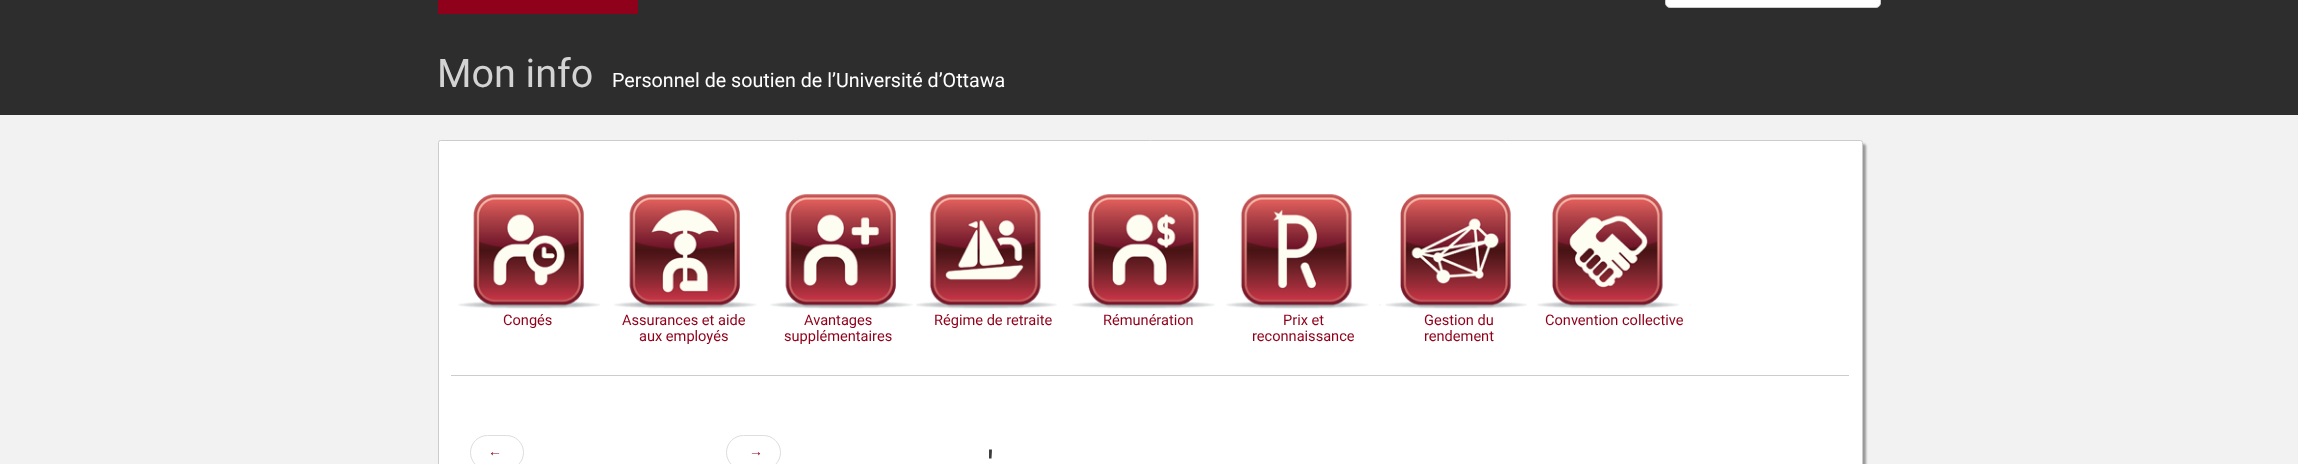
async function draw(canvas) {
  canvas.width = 2298
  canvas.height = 464
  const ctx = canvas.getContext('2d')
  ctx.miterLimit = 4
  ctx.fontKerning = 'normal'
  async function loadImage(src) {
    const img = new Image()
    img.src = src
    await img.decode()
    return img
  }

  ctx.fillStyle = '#f2f2f2'
  ctx.fillRect(0, 0, 2298, 464)
  ctx.fillStyle = '#2d2d2d'
  ctx.fillRect(0, 0, 2298, 115)
  ctx.fillStyle = '#8f001a'
  ctx.fillRect(438, 0, 200, 14)
  ctx.fillStyle = '#fff'
  ctx.beginPath()
  ctx.roundRect(1665.5, -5.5, 215, 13, 4.5)
  ctx.fill()
  ctx.strokeStyle = '#ccc'
  ctx.stroke()
  ctx.font = '39.5px Roboto'
  ctx.fillStyle = '#d3d3d3'
  ctx.fillText('Mon info', 437, 87)
  ctx.font = '19.7px Roboto'
  ctx.fillStyle = '#fff'
  ctx.fillText('Personnel de soutien de l’Université d’Ottawa', 612, 87)
  ctx.fillStyle = '#999'
  ctx.filter = 'blur(1px)'
  ctx.beginPath()
  ctx.roundRect(441, 144, 1425, 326, 2.5)
  ctx.fill()
  ctx.filter = 'none'
  ctx.fillStyle = '#fff'
  ctx.beginPath()
  ctx.roundRect(438.5, 140.5, 1424, 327, 2)
  ctx.fill()
  ctx.stroke()
  ctx.drawImage(await loadImage('image0.png'), 458, 194, 142, 115)
  ctx.font = '14.6px Roboto'
  ctx.fillStyle = '#8f001a'
  ctx.fillText('Congés', 503, 325)
  ctx.drawImage(await loadImage('image1.png'), 614, 194, 143, 115)
  ctx.fillText('Assurances et aide', 622, 325)
  ctx.fillText('aux employés', 639, 341)
  ctx.drawImage(await loadImage('image2.png'), 770, 194, 143, 115)
  ctx.fillText('Avantages', 804, 325)
  ctx.fillText('supplémentaires', 784, 341)
  ctx.drawImage(await loadImage('image3.png'), 916, 194, 141, 115)
  ctx.fillText('Régime de retraite', 934, 325)
  ctx.drawImage(await loadImage('image4.png'), 1072, 194, 143, 115)
  ctx.fillText('Rémunération', 1103, 325)
  ctx.drawImage(await loadImage('image5.png'), 1226, 194, 155, 115)
  ctx.fillText('Prix et', 1283, 325)
  ctx.fillText('reconnaissance', 1252, 341)
  ctx.drawImage(await loadImage('image6.png'), 1385, 194, 142, 115)
  ctx.fillText('Gestion du', 1424, 325)
  ctx.fillText('rendement', 1424, 341)
  ctx.drawImage(await loadImage('image7.png'), 1537, 194, 154, 115)
  ctx.fillText('Convention collective', 1545, 325)
  ctx.fillStyle = '#ccc'
  ctx.fillRect(451, 375, 1398, 1)
  ctx.beginPath()
  ctx.roundRect(470.5, 435.5, 53, 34, 17)
  ctx.strokeStyle = '#ddd'
  ctx.stroke()
  ctx.font = '14px Liberation Sans'
  ctx.fillStyle = '#8f001a'
  ctx.fillText('←', 488, 456)
  ctx.beginPath()
  ctx.roundRect(726.5, 435.5, 54, 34, 17)
  ctx.stroke()
  ctx.fillText('→', 749, 456)
  ctx.font = '39.5px Roboto'
  ctx.fillStyle = '#3c3c3c'
  ctx.fillText('\'', 987, 479)
}

draw(document.querySelector('canvas'))
